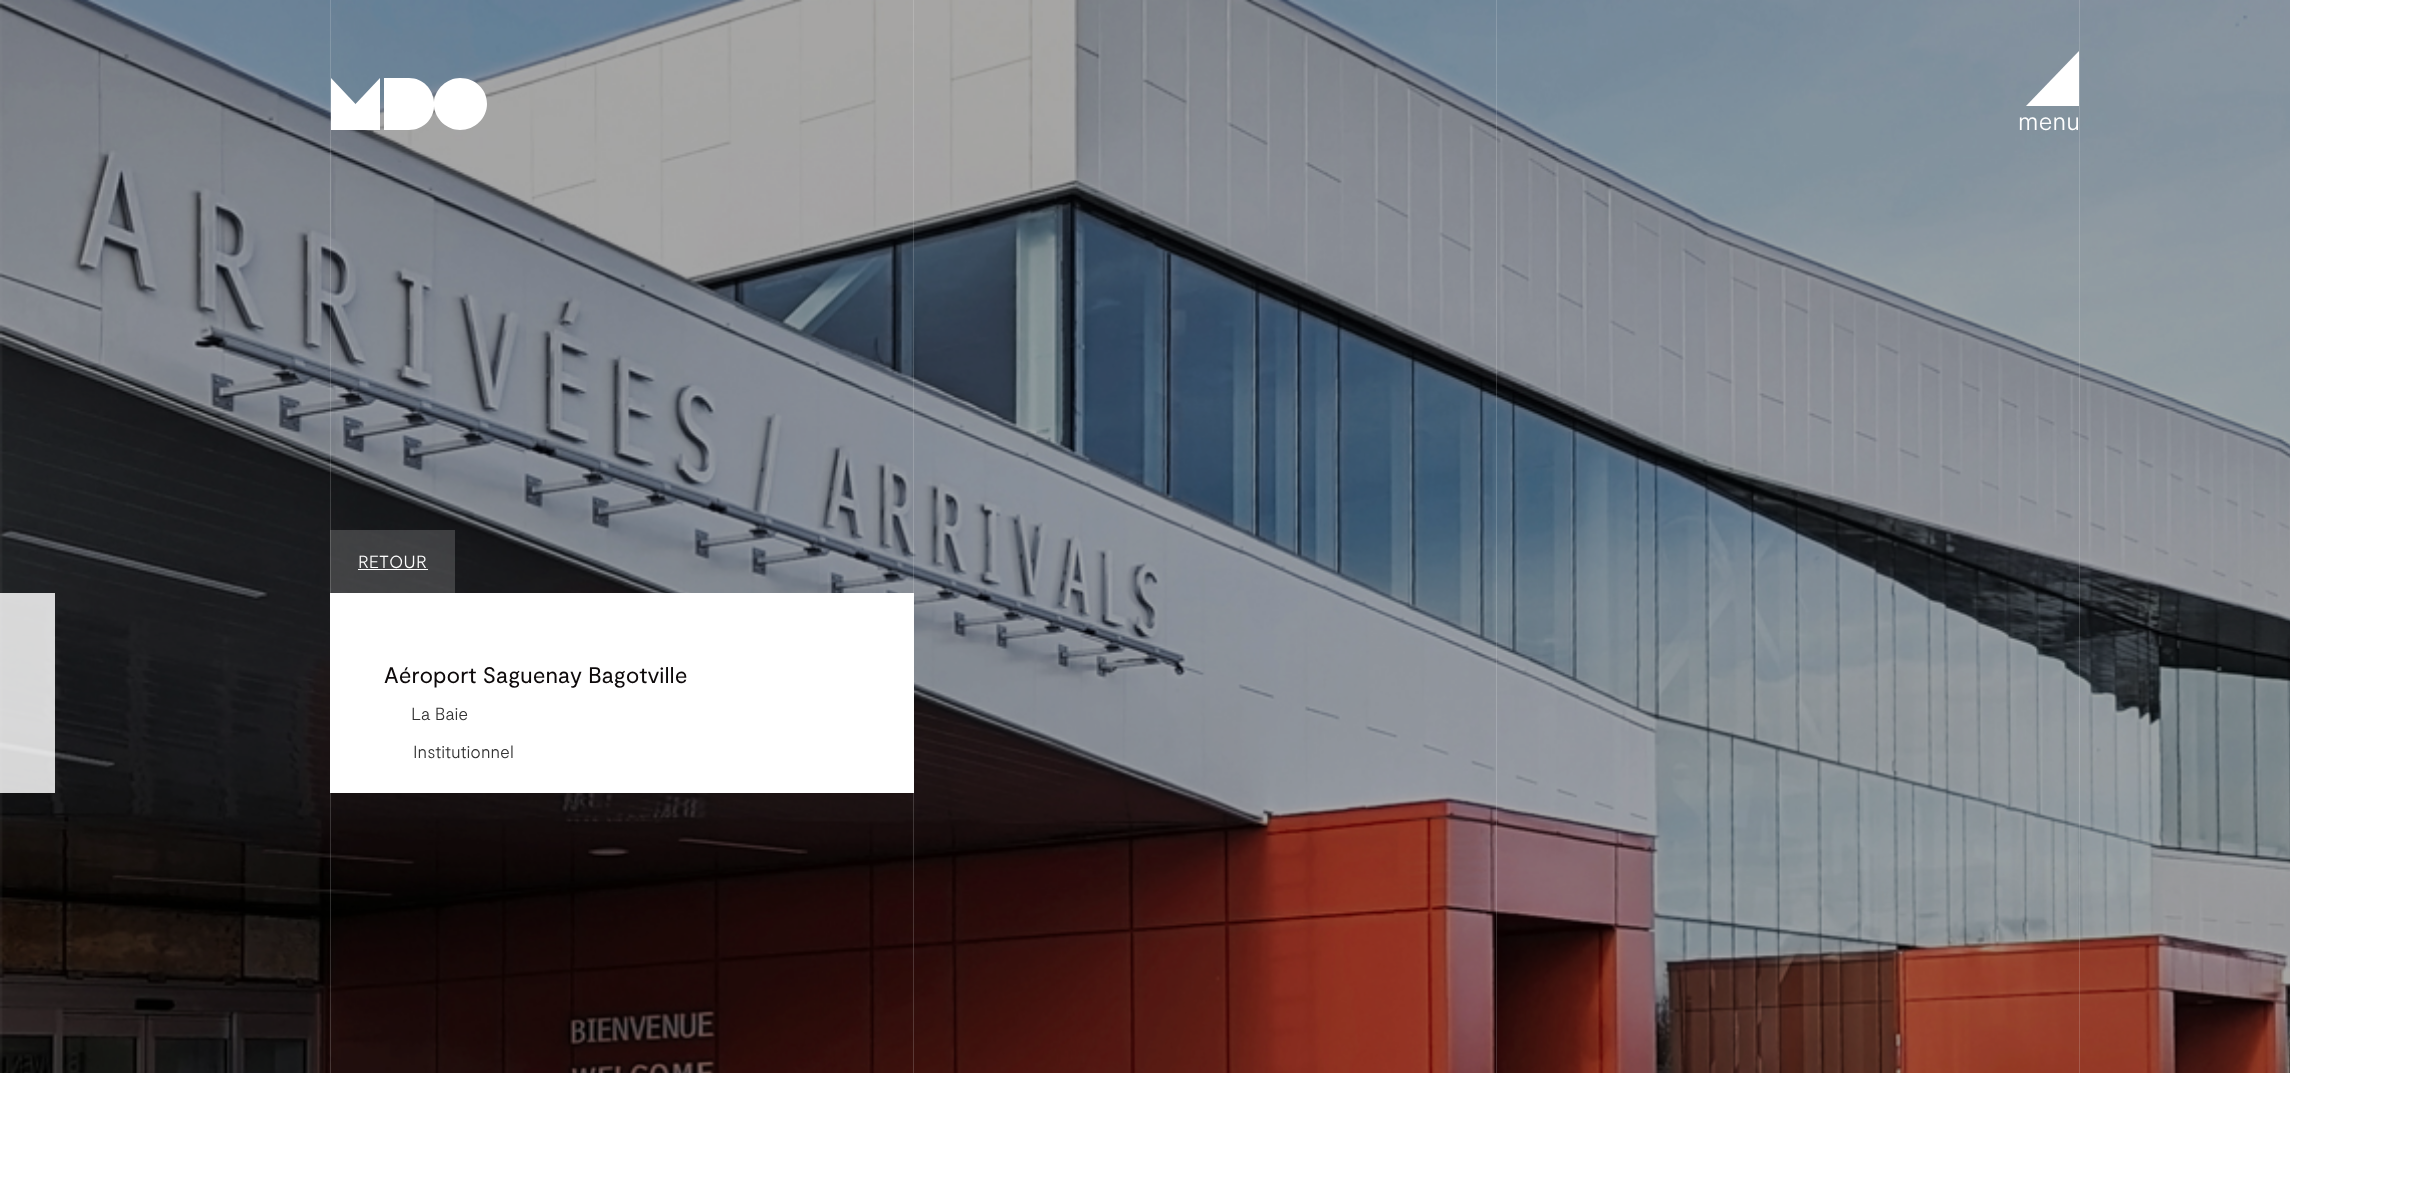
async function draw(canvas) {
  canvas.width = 2410
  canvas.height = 1192
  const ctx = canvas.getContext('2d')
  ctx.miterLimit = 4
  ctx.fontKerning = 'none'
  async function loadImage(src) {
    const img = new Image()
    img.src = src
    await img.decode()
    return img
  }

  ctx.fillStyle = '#fff'
  ctx.fillRect(0, 0, 2410, 1192)
  ctx.drawImage(await loadImage('image0.png'), 0, 0, 2290, 1073)
  ctx.beginPath()
  ctx.moveTo(331, 78)
  ctx.lineTo(331, 130)
  ctx.lineTo(380, 130)
  ctx.closePath()
  ctx.fill()
  ctx.beginPath()
  ctx.moveTo(380, 78)
  ctx.lineTo(380, 130)
  ctx.lineTo(331, 130)
  ctx.closePath()
  ctx.fill()
  ctx.beginPath()
  ctx.moveTo(460, 78)
  ctx.bezierCurveTo(447, 78, 435, 89, 434, 102)
  ctx.bezierCurveTo(433, 89, 423, 78, 409, 78)
  ctx.lineTo(384, 78)
  ctx.lineTo(384, 130)
  ctx.lineTo(409, 130)
  ctx.bezierCurveTo(423, 130, 434, 119, 434, 106)
  ctx.bezierCurveTo(435, 119, 447, 130, 460, 130)
  ctx.bezierCurveTo(475, 130, 487, 118, 487, 104)
  ctx.bezierCurveTo(487, 89, 475, 78, 460, 78)
  ctx.closePath()
  ctx.fill()
  ctx.beginPath()
  ctx.moveTo(2079, 51)
  ctx.lineTo(2079, 106)
  ctx.lineTo(2026, 106)
  ctx.closePath()
  ctx.fill()
  ctx.font = '300 25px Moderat'
  ctx.fillText('menu', 2018, 130)
  ctx.fillStyle = '#f5f5f52e'
  ctx.fillRect(330, 0, 1, 1073)
  ctx.fillRect(913, 0, 1, 1073)
  ctx.fillRect(1496, 0, 1, 1073)
  ctx.fillRect(2079, 0, 1, 1073)
  ctx.fillStyle = '#ffffffd4'
  ctx.fillRect(0, 593, 55, 200)
  ctx.fillStyle = '#f5f5f52e'
  ctx.fillRect(330, 530, 125, 63)
  ctx.font = '300 17.5px Moderat'
  ctx.fillStyle = '#fff'
  ctx.fillText('RETOUR', 358, 568)
  ctx.fillRect(358, 569, 70, 1)
  ctx.fillRect(330, 593, 584, 200)
  ctx.font = '22.5px Moderat'
  ctx.fillStyle = '#0d090a'
  ctx.fillText('Aéroport Saguenay Bagotville', 384, 683)
  ctx.font = '300 17.5px Moderat'
  ctx.fillStyle = '#333'
  ctx.fillText('La Baie', 411, 720)
  ctx.fillText('Institutionnel', 413, 758)
}

draw(document.querySelector('canvas'))
